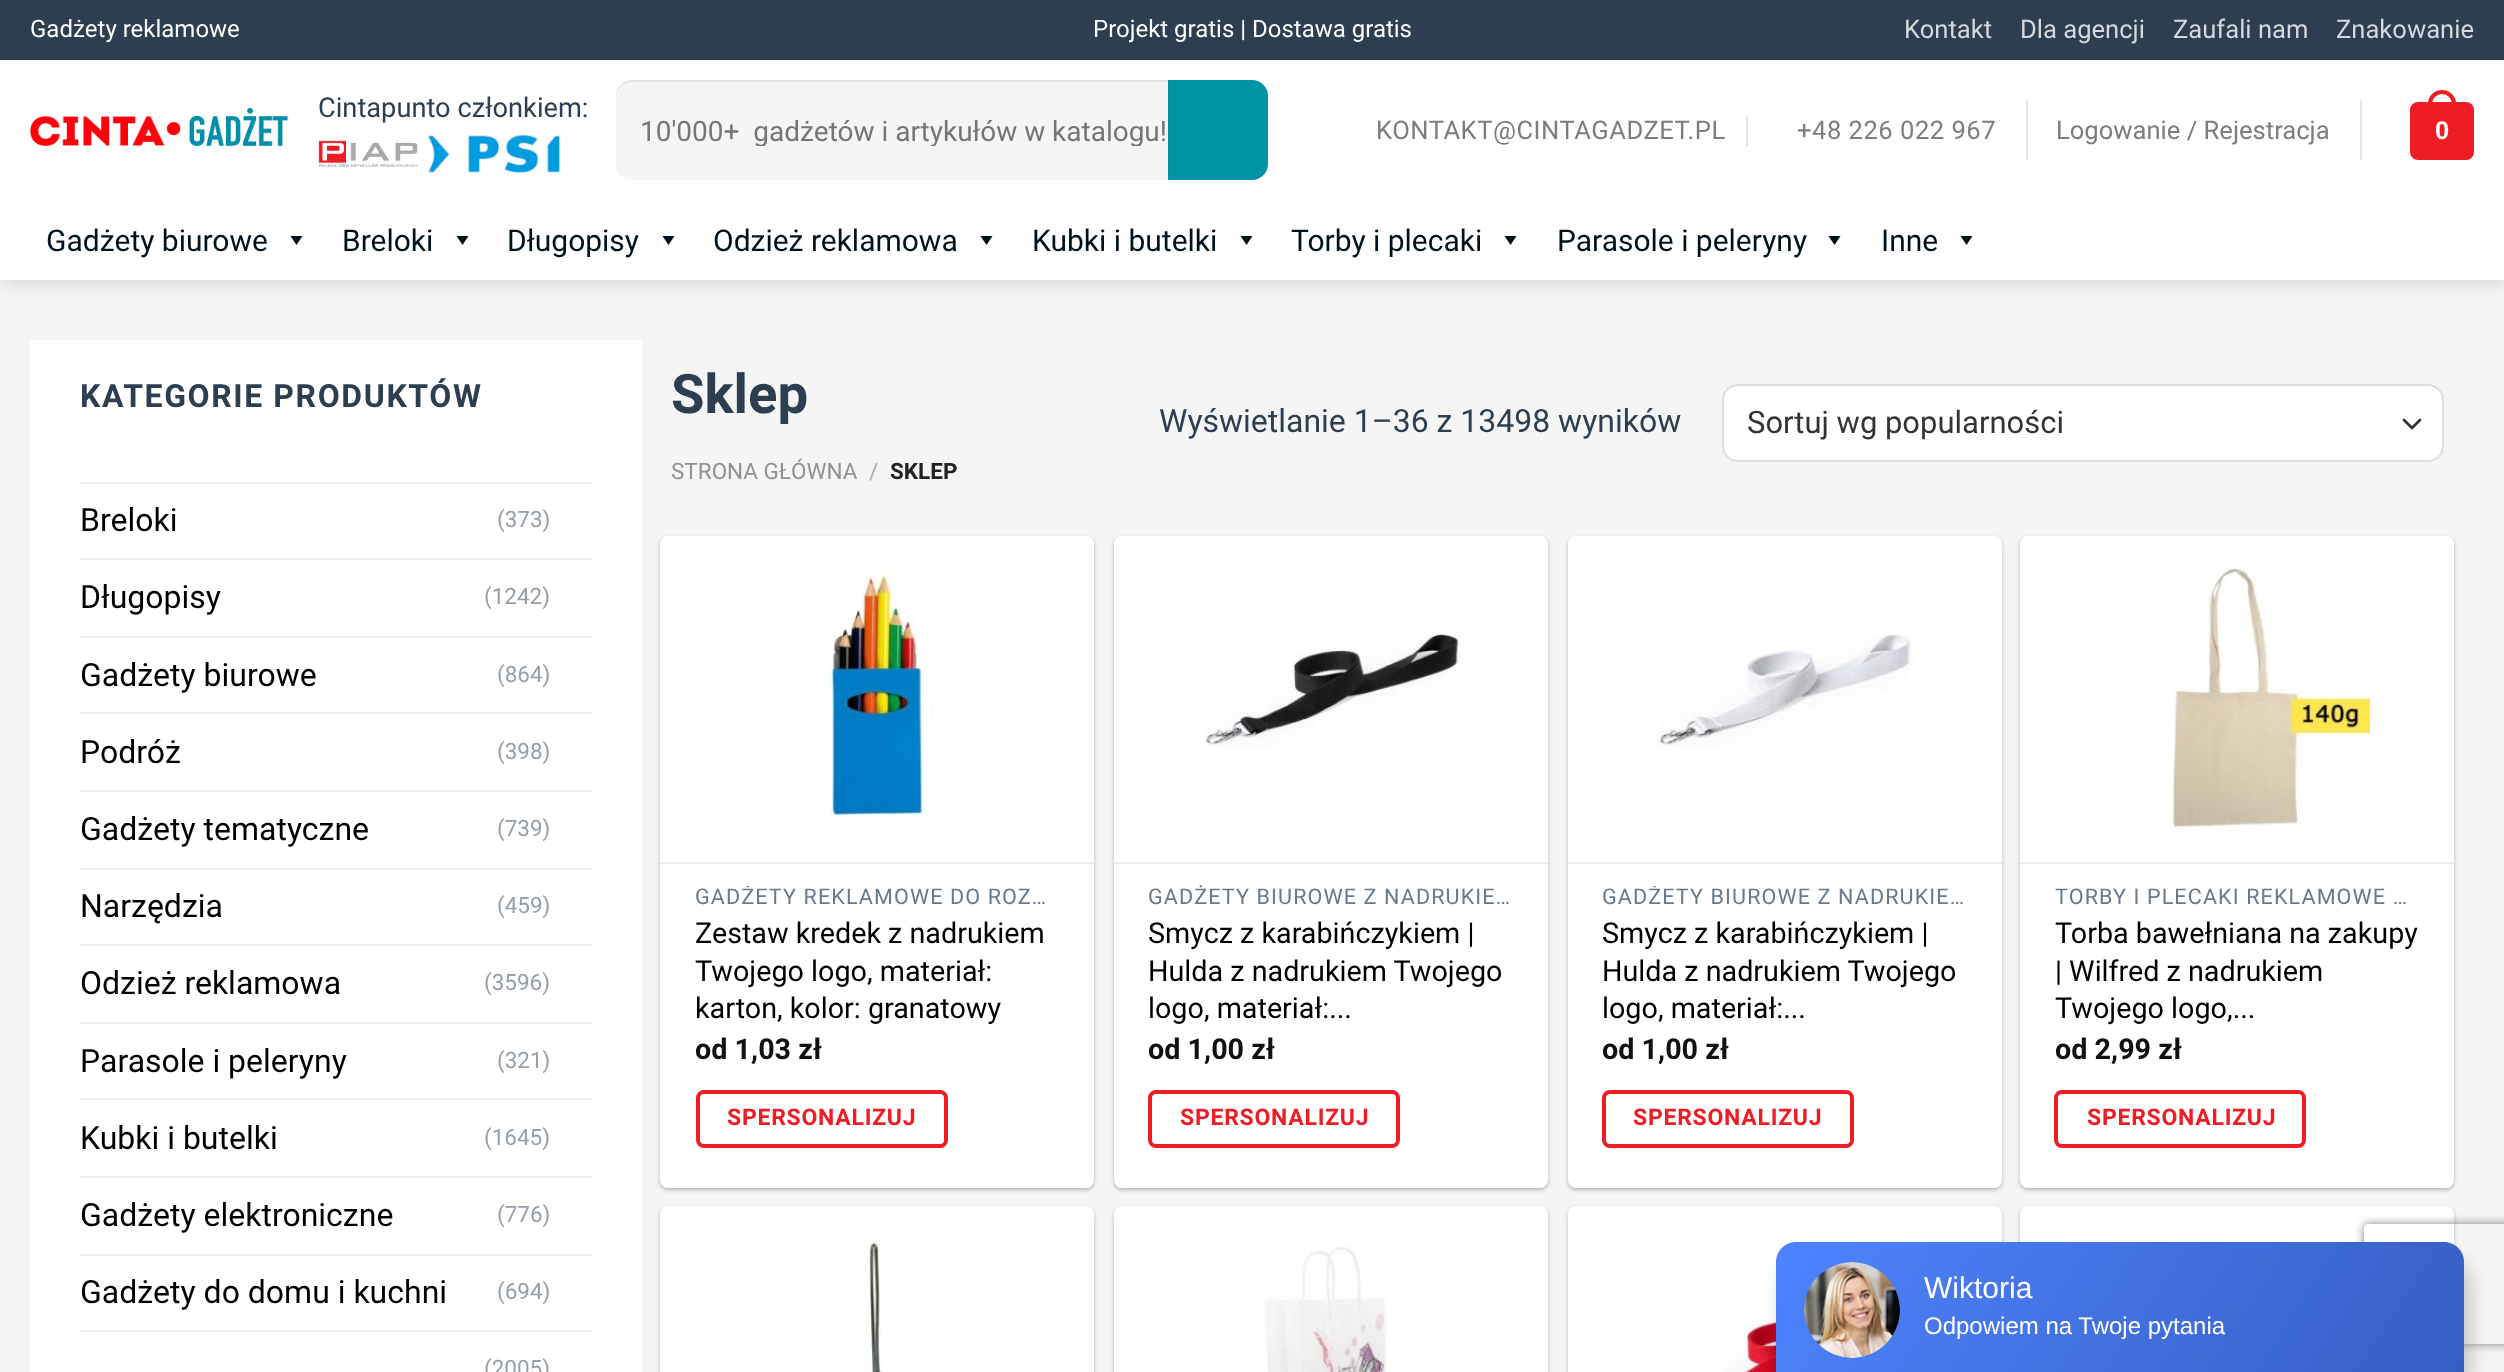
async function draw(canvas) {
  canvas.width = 2504
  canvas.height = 1372
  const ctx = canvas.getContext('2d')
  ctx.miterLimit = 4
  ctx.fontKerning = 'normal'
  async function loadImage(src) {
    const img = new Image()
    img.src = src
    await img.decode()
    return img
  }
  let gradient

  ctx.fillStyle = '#f5f5f5'
  ctx.fillRect(0, 0, 2504, 1372)
  ctx.fillStyle = '#00000026'
  ctx.filter = 'blur(10px)'
  ctx.beginPath()
  ctx.rect(2, 2, 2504, 280)
  ctx.fill()
  ctx.filter = 'none'
  ctx.fillStyle = '#2c3e50'
  ctx.fillRect(0, 0, 2504, 60)
  ctx.font = '24px Roboto'
  ctx.fillStyle = '#fff'
  ctx.fillText('Gadżety reklamowe', 30, 37)
  ctx.fillText('Projekt gratis | Dostawa gratis', 1093, 37)
  ctx.font = '25.6px Roboto'
  ctx.fillStyle = '#d5d8dc'
  ctx.fillText('Kontakt', 1904, 38)
  ctx.fillText('Dla agencji', 2020, 38)
  ctx.fillText('Zaufali nam', 2173, 38)
  ctx.fillText('Znakowanie', 2336, 38)
  ctx.fillStyle = '#fefefe'
  ctx.fillRect(0, 60, 2504, 220)
  ctx.drawImage(await loadImage('image0.png'), 30, 108, 258, 38)
  ctx.font = '27.25px Roboto'
  ctx.fillStyle = '#2c3e50'
  ctx.fillText('Cintapunto członkiem:', 318, 117)
  ctx.drawImage(await loadImage('image1.png'), 318, 140, 100, 27)
  ctx.drawImage(await loadImage('image2.png'), 428, 134, 133, 39)
  ctx.fillStyle = '#f5f5f5'
  ctx.beginPath()
  ctx.roundRect(616, 80, 652, 100, 16)
  ctx.fill()
  ctx.fillStyle = '#00000012'
  ctx.beginPath()
  ctx.moveTo(632, 82)
  ctx.lineTo(1252, 82)
  ctx.bezierCurveTo(1261, 82, 1268, 89, 1268, 98)
  ctx.lineTo(1268, 96)
  ctx.bezierCurveTo(1268, 87, 1261, 80, 1252, 80)
  ctx.lineTo(632, 80)
  ctx.bezierCurveTo(623, 80, 616, 87, 616, 96)
  ctx.lineTo(616, 98)
  ctx.bezierCurveTo(616, 89, 623, 82, 632, 82)
  ctx.closePath()
  ctx.fill()
  ctx.save()
  ctx.beginPath()
  ctx.rect(640, 114, 596, 32)
  ctx.clip()
  ctx.font = '28px Roboto'
  ctx.fillStyle = '#757575'
  ctx.fillText('10\'000+  gadżetów i artykułów w katalogu!', 640, 141)
  ctx.restore()
  ctx.fillStyle = '#0093a7'
  ctx.beginPath()
  ctx.roundRect(1168, 80, 100, 100, [0, 16, 16, 0])
  ctx.fill()
  ctx.letterSpacing = '0.5px'
  ctx.font = '25.6px Roboto'
  ctx.fillStyle = '#7d7d7d'
  ctx.fillText('KONTAKT@CINTAGADZET.PL', 1376, 139)
  ctx.fillStyle = '#e5e5e5'
  ctx.fillRect(1746, 116, 2, 30)
  ctx.fillStyle = '#7d7d7d'
  ctx.fillText('+48 226 022 967', 1797, 139)
  ctx.fillStyle = '#e5e5e5'
  ctx.fillRect(2026, 100, 2, 60)
  ctx.letterSpacing = '0px'
  ctx.fillStyle = '#7d7d7d'
  ctx.fillText('Logowanie / Rejestracja', 2056, 139)
  ctx.fillStyle = '#e5e5e5'
  ctx.fillRect(2360, 100, 2, 60)
  ctx.fillStyle = '#ee1d23'
  ctx.beginPath()
  ctx.roundRect(2412, 104, 60, 54, 6)
  ctx.fill()
  ctx.strokeStyle = '#ee1d23'
  ctx.lineWidth = 4
  ctx.stroke()
  ctx.beginPath()
  ctx.roundRect(2430, 92, 24, 12, [12, 12, 0, 0])
  ctx.stroke()
  ctx.font = 'bold 25.6px Liberation Sans'
  ctx.fillStyle = '#fff'
  ctx.fillText('0', 2435, 139)
  ctx.font = '30px Roboto'
  ctx.fillStyle = '#00111a'
  ctx.fillText('Gadżety biurowe', 46, 251)
  ctx.beginPath()
  ctx.moveTo(302.5, 236)
  ctx.lineTo(296.5, 245)
  ctx.lineTo(290.5, 236)
  ctx.closePath()
  ctx.fill()
  ctx.fillText('Breloki', 342, 251)
  ctx.beginPath()
  ctx.moveTo(468.5, 236)
  ctx.lineTo(462.5, 245)
  ctx.lineTo(456.5, 236)
  ctx.closePath()
  ctx.fill()
  ctx.fillText('Długopisy', 507, 251)
  ctx.beginPath()
  ctx.moveTo(674.5, 236)
  ctx.lineTo(668.5, 245)
  ctx.lineTo(662.5, 236)
  ctx.closePath()
  ctx.fill()
  ctx.fillText('Odzież reklamowa', 713, 251)
  ctx.beginPath()
  ctx.moveTo(992.5, 236)
  ctx.lineTo(986.5, 245)
  ctx.lineTo(980.5, 236)
  ctx.closePath()
  ctx.fill()
  ctx.fillText('Kubki i butelki', 1032, 251)
  ctx.beginPath()
  ctx.moveTo(1252.5, 236)
  ctx.lineTo(1246.5, 245)
  ctx.lineTo(1240.5, 236)
  ctx.closePath()
  ctx.fill()
  ctx.fillText('Torby i plecaki', 1291, 251)
  ctx.beginPath()
  ctx.moveTo(1516.5, 236)
  ctx.lineTo(1510.5, 245)
  ctx.lineTo(1504.5, 236)
  ctx.closePath()
  ctx.fill()
  ctx.fillText('Parasole i peleryny', 1557, 251)
  ctx.beginPath()
  ctx.moveTo(1840.5, 236)
  ctx.lineTo(1834.5, 245)
  ctx.lineTo(1828.5, 236)
  ctx.closePath()
  ctx.fill()
  ctx.fillText('Inne', 1881, 251)
  ctx.beginPath()
  ctx.moveTo(1972.5, 236)
  ctx.lineTo(1966.5, 245)
  ctx.lineTo(1960.5, 236)
  ctx.closePath()
  ctx.fill()
  ctx.fillStyle = '#fff'
  ctx.fillRect(30, 340, 612, 1032)
  ctx.letterSpacing = '1.6px'
  ctx.font = 'bold 32px Roboto'
  ctx.fillStyle = '#2c3e50'
  ctx.fillText('KATEGORIE PRODUKTÓW', 80, 407)
  ctx.fillStyle = '#ececec'
  ctx.fillRect(80, 482, 512, 2)
  ctx.letterSpacing = '0px'
  ctx.font = '32px Roboto'
  ctx.fillStyle = '#000'
  ctx.fillText('Breloki', 80, 531)
  ctx.font = '22.5px Roboto'
  ctx.fillStyle = '#969fa8'
  ctx.fillText('(373)', 497, 527)
  ctx.fillStyle = '#ececec'
  ctx.fillRect(80, 558, 512, 2)
  ctx.font = '32px Roboto'
  ctx.fillStyle = '#000'
  ctx.fillText('Długopisy', 80, 608)
  ctx.font = '22.5px Roboto'
  ctx.fillStyle = '#969fa8'
  ctx.fillText('(1242)', 484, 604)
  ctx.fillStyle = '#ececec'
  ctx.fillRect(80, 636, 512, 2)
  ctx.font = '32px Roboto'
  ctx.fillStyle = '#000'
  ctx.fillText('Gadżety biurowe', 80, 686)
  ctx.font = '22.5px Roboto'
  ctx.fillStyle = '#969fa8'
  ctx.fillText('(864)', 497, 682)
  ctx.fillStyle = '#ececec'
  ctx.fillRect(80, 712, 512, 2)
  ctx.font = '32px Roboto'
  ctx.fillStyle = '#000'
  ctx.fillText('Podróż', 80, 763)
  ctx.font = '22.5px Roboto'
  ctx.fillStyle = '#969fa8'
  ctx.fillText('(398)', 497, 759)
  ctx.fillStyle = '#ececec'
  ctx.fillRect(80, 790, 512, 2)
  ctx.font = '32px Roboto'
  ctx.fillStyle = '#000'
  ctx.fillText('Gadżety tematyczne', 80, 840)
  ctx.font = '22.5px Roboto'
  ctx.fillStyle = '#969fa8'
  ctx.fillText('(739)', 497, 836)
  ctx.fillStyle = '#ececec'
  ctx.fillRect(80, 868, 512, 2)
  ctx.font = '32px Roboto'
  ctx.fillStyle = '#000'
  ctx.fillText('Narzędzia', 80, 917)
  ctx.font = '22.5px Roboto'
  ctx.fillStyle = '#969fa8'
  ctx.fillText('(459)', 497, 913)
  ctx.fillStyle = '#ececec'
  ctx.fillRect(80, 944, 512, 2)
  ctx.font = '32px Roboto'
  ctx.fillStyle = '#000'
  ctx.fillText('Odzież reklamowa', 80, 994)
  ctx.font = '22.5px Roboto'
  ctx.fillStyle = '#969fa8'
  ctx.fillText('(3596)', 484, 990)
  ctx.fillStyle = '#ececec'
  ctx.fillRect(80, 1022, 512, 2)
  ctx.font = '32px Roboto'
  ctx.fillStyle = '#000'
  ctx.fillText('Parasole i peleryny', 80, 1072)
  ctx.font = '22.5px Roboto'
  ctx.fillStyle = '#969fa8'
  ctx.fillText('(321)', 497, 1068)
  ctx.fillStyle = '#ececec'
  ctx.fillRect(80, 1098, 512, 2)
  ctx.font = '32px Roboto'
  ctx.fillStyle = '#000'
  ctx.fillText('Kubki i butelki', 80, 1149)
  ctx.font = '22.5px Roboto'
  ctx.fillStyle = '#969fa8'
  ctx.fillText('(1645)', 484, 1145)
  ctx.fillStyle = '#ececec'
  ctx.fillRect(80, 1176, 512, 2)
  ctx.font = '32px Roboto'
  ctx.fillStyle = '#000'
  ctx.fillText('Gadżety elektroniczne', 80, 1226)
  ctx.font = '22.5px Roboto'
  ctx.fillStyle = '#969fa8'
  ctx.fillText('(776)', 497, 1222)
  ctx.fillStyle = '#ececec'
  ctx.fillRect(80, 1254, 512, 2)
  ctx.font = '32px Roboto'
  ctx.fillStyle = '#000'
  ctx.fillText('Gadżety do domu i kuchni', 80, 1303)
  ctx.font = '22.5px Roboto'
  ctx.fillStyle = '#969fa8'
  ctx.fillText('(694)', 497, 1299)
  ctx.fillStyle = '#ececec'
  ctx.fillRect(80, 1330, 512, 2)
  ctx.fillStyle = '#969fa8'
  ctx.fillText('(2005)', 484, 1376)
  ctx.font = 'bold 54.5px Roboto'
  ctx.fillStyle = '#2c3e50'
  ctx.fillText('Sklep', 671, 413)
  ctx.font = '22.5px Roboto'
  ctx.fillStyle = '#919191'
  ctx.fillText('STRONA GŁÓWNA', 671, 479)
  ctx.fillStyle = '#ababab'
  ctx.fillText('/', 869, 479)
  ctx.font = 'bold 22.5px Roboto'
  ctx.fillStyle = '#222'
  ctx.fillText('SKLEP', 890, 479)
  ctx.font = '32px Roboto'
  ctx.fillStyle = '#2c3e50'
  ctx.fillText('Wyświetlanie 1–36 z 13498 wyników', 1159, 432)
  ctx.fillStyle = '#fff'
  ctx.beginPath()
  ctx.roundRect(1722, 384, 722, 78, 16)
  ctx.fill()
  ctx.beginPath()
  ctx.moveTo(2404, 420)
  ctx.lineTo(2412, 428)
  ctx.lineTo(2420, 420)
  ctx.strokeStyle = '#333'
  ctx.lineWidth = 2.7
  ctx.lineCap = 'round'
  ctx.lineJoin = 'round'
  ctx.stroke()
  ctx.beginPath()
  ctx.roundRect(1723, 385, 720, 76, 15)
  ctx.strokeStyle = '#ddd'
  ctx.lineWidth = 2
  ctx.lineJoin = 'miter'
  ctx.stroke()
  ctx.font = '31px Roboto'
  ctx.fillStyle = '#333'
  ctx.fillText('Sortuj wg popularności', 1747, 433)
  ctx.fillStyle = '#0000003d'
  ctx.filter = 'blur(2px)'
  ctx.beginPath()
  ctx.roundRect(660, 538, 434, 652, 8)
  ctx.fill()
  ctx.filter = 'none'
  ctx.fillStyle = '#0000001f'
  ctx.filter = 'blur(3px)'
  ctx.beginPath()
  ctx.roundRect(664, 542, 426, 644, 4)
  ctx.fill()
  ctx.filter = 'none'
  ctx.fillStyle = '#fff'
  ctx.beginPath()
  ctx.roundRect(660, 536, 434, 652, 8)
  ctx.fill()
  ctx.drawImage(await loadImage('image3.png'), 830, 566, 104, 258)
  ctx.fillStyle = '#ececec'
  ctx.fillRect(660, 862, 434, 2)
  ctx.save()
  ctx.beginPath()
  ctx.rect(696, 886, 364, 26)
  ctx.clip()
  ctx.letterSpacing = '1.1px'
  ctx.font = '21.6px Roboto'
  ctx.fillStyle = '#6b7885'
  ctx.fillText('GADŻETY REKLAMOWE DO ROZ…', 695, 904)
  ctx.restore()
  ctx.font = '28.75px Roboto'
  ctx.fillStyle = '#000'
  ctx.fillText('Zestaw kredek z nadrukiem', 695, 943)
  ctx.fillText('Twojego logo, materiał:', 695, 981)
  ctx.fillText('karton, kolor: granatowy', 695, 1018)
  ctx.font = 'bold 28.75px Roboto'
  ctx.fillStyle = '#111'
  ctx.fillText('od 1,03 zł', 695, 1059)
  ctx.beginPath()
  ctx.roundRect(698, 1092, 248, 54, 6)
  ctx.strokeStyle = '#ee1d23'
  ctx.lineWidth = 4
  ctx.stroke()
  ctx.letterSpacing = '0.75px'
  ctx.font = 'bold 23px Roboto'
  ctx.fillStyle = '#ee1d23'
  ctx.fillText('SPERSONALIZUJ', 727, 1125)
  ctx.fillStyle = '#0000003d'
  ctx.filter = 'blur(2px)'
  ctx.beginPath()
  ctx.roundRect(1114, 538, 434, 652, 8)
  ctx.fill()
  ctx.filter = 'none'
  ctx.fillStyle = '#0000001f'
  ctx.filter = 'blur(3px)'
  ctx.beginPath()
  ctx.roundRect(1118, 542, 426, 644, 4)
  ctx.fill()
  ctx.filter = 'none'
  ctx.fillStyle = '#fff'
  ctx.beginPath()
  ctx.roundRect(1114, 536, 434, 652, 8)
  ctx.fill()
  ctx.drawImage(await loadImage('image4.png'), 1205, 633, 258, 114)
  ctx.fillStyle = '#ececec'
  ctx.fillRect(1114, 862, 434, 2)
  ctx.letterSpacing = '1.1px'
  ctx.font = '21.6px Roboto'
  ctx.fillStyle = '#6b7885'
  ctx.fillText('GADŻETY BIUROWE Z NADRUKIE…', 1148, 904)
  ctx.letterSpacing = '0px'
  ctx.font = '28.75px Roboto'
  ctx.fillStyle = '#000'
  ctx.fillText('Smycz z karabińczykiem |', 1148, 943)
  ctx.fillText('Hulda z nadrukiem Twojego', 1148, 981)
  ctx.fillText('logo, materiał:...', 1148, 1018)
  ctx.font = 'bold 28.75px Roboto'
  ctx.fillStyle = '#111'
  ctx.fillText('od 1,00 zł', 1148, 1059)
  ctx.beginPath()
  ctx.roundRect(1150, 1092, 248, 54, 6)
  ctx.stroke()
  ctx.letterSpacing = '0.75px'
  ctx.font = 'bold 23px Roboto'
  ctx.fillStyle = '#ee1d23'
  ctx.fillText('SPERSONALIZUJ', 1180, 1125)
  ctx.fillStyle = '#0000003d'
  ctx.filter = 'blur(2px)'
  ctx.beginPath()
  ctx.roundRect(1568, 538, 434, 652, 8)
  ctx.fill()
  ctx.filter = 'none'
  ctx.fillStyle = '#0000001f'
  ctx.filter = 'blur(3px)'
  ctx.beginPath()
  ctx.roundRect(1572, 542, 426, 644, 4)
  ctx.fill()
  ctx.filter = 'none'
  ctx.fillStyle = '#fff'
  ctx.beginPath()
  ctx.roundRect(1568, 536, 434, 652, 8)
  ctx.fill()
  ctx.drawImage(await loadImage('image5.png'), 1658, 634, 258, 113)
  ctx.fillStyle = '#ececec'
  ctx.fillRect(1568, 862, 434, 2)
  ctx.save()
  ctx.beginPath()
  ctx.rect(1602, 886, 364, 26)
  ctx.clip()
  ctx.letterSpacing = '1.1px'
  ctx.font = '21.6px Roboto'
  ctx.fillStyle = '#6b7885'
  ctx.fillText('GADŻETY BIUROWE Z NADRUKIE…', 1602, 904)
  ctx.restore()
  ctx.letterSpacing = '0px'
  ctx.font = '28.75px Roboto'
  ctx.fillStyle = '#000'
  ctx.fillText('Smycz z karabińczykiem |', 1602, 943)
  ctx.fillText('Hulda z nadrukiem Twojego', 1602, 981)
  ctx.fillText('logo, materiał:...', 1602, 1018)
  ctx.font = 'bold 28.75px Roboto'
  ctx.fillStyle = '#111'
  ctx.fillText('od 1,00 zł', 1602, 1059)
  ctx.beginPath()
  ctx.roundRect(1604, 1092, 248, 54, 6)
  ctx.stroke()
  ctx.letterSpacing = '0.75px'
  ctx.font = 'bold 23px Roboto'
  ctx.fillStyle = '#ee1d23'
  ctx.fillText('SPERSONALIZUJ', 1633, 1125)
  ctx.fillStyle = '#0000003d'
  ctx.filter = 'blur(2px)'
  ctx.beginPath()
  ctx.roundRect(2020, 538, 434, 652, 8)
  ctx.fill()
  ctx.filter = 'none'
  ctx.fillStyle = '#0000001f'
  ctx.filter = 'blur(3px)'
  ctx.beginPath()
  ctx.roundRect(2024, 542, 426, 644, 4)
  ctx.fill()
  ctx.filter = 'none'
  ctx.fillStyle = '#fff'
  ctx.beginPath()
  ctx.roundRect(2020, 536, 434, 652, 8)
  ctx.fill()
  ctx.drawImage(await loadImage('image6.png'), 2172, 566, 198, 266)
  ctx.fillStyle = '#ececec'
  ctx.fillRect(2020, 862, 434, 2)
  ctx.letterSpacing = '1.1px'
  ctx.font = '21.6px Roboto'
  ctx.fillStyle = '#6b7885'
  ctx.fillText('TORBY I PLECAKI REKLAMOWE …', 2055, 904)
  ctx.letterSpacing = '0px'
  ctx.font = '28.75px Roboto'
  ctx.fillStyle = '#000'
  ctx.fillText('Torba bawełniana na zakupy', 2055, 943)
  ctx.fillText('| Wilfred z nadrukiem', 2055, 981)
  ctx.fillText('Twojego logo,...', 2055, 1018)
  ctx.font = 'bold 28.75px Roboto'
  ctx.fillStyle = '#111'
  ctx.fillText('od 2,99 zł', 2055, 1059)
  ctx.beginPath()
  ctx.roundRect(2056, 1092, 248, 54, 6)
  ctx.stroke()
  ctx.letterSpacing = '0.75px'
  ctx.font = 'bold 23px Roboto'
  ctx.fillStyle = '#ee1d23'
  ctx.fillText('SPERSONALIZUJ', 2087, 1125)
  ctx.fillStyle = '#0000003d'
  ctx.filter = 'blur(2px)'
  ctx.beginPath()
  ctx.roundRect(660, 1208, 434, 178, 8)
  ctx.fill()
  ctx.filter = 'none'
  ctx.fillStyle = '#fff'
  ctx.beginPath()
  ctx.roundRect(660, 1206, 434, 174, 8)
  ctx.fill()
  ctx.drawImage(await loadImage('image7.png'), 865, 1237, 21, 135)
  ctx.fillStyle = '#0000003d'
  ctx.filter = 'blur(2px)'
  ctx.beginPath()
  ctx.roundRect(1114, 1208, 434, 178, 8)
  ctx.fill()
  ctx.filter = 'none'
  ctx.fillStyle = '#fff'
  ctx.beginPath()
  ctx.roundRect(1114, 1206, 434, 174, 8)
  ctx.fill()
  ctx.drawImage(await loadImage('image8.png'), 1264, 1246, 124, 126)
  ctx.fillStyle = '#0000003d'
  ctx.filter = 'blur(2px)'
  ctx.beginPath()
  ctx.roundRect(1568, 1208, 434, 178, 8)
  ctx.fill()
  ctx.filter = 'none'
  ctx.fillStyle = '#fff'
  ctx.beginPath()
  ctx.roundRect(1568, 1206, 434, 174, 8)
  ctx.fill()
  ctx.drawImage(await loadImage('image9.png'), 1721, 1300, 55, 72)
  ctx.fillStyle = '#0000003d'
  ctx.filter = 'blur(2px)'
  ctx.beginPath()
  ctx.roundRect(2020, 1208, 434, 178, 8)
  ctx.fill()
  ctx.filter = 'none'
  ctx.fillStyle = '#fff'
  ctx.beginPath()
  ctx.roundRect(2020, 1206, 434, 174, 8)
  ctx.fill()
  ctx.fillStyle = '#00000033'
  ctx.filter = 'blur(10px)'
  ctx.beginPath()
  ctx.roundRect(1782, 1262, 688, 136, 20)
  ctx.fill()
  ctx.filter = 'none'
  ctx.save()
  ctx.beginPath()
  ctx.moveTo(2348, 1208)
  ctx.lineTo(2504, 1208)
  ctx.lineTo(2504, 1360)
  ctx.lineTo(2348, 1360)
  ctx.closePath()
  ctx.moveTo(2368, 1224)
  ctx.lineTo(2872, 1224)
  ctx.bezierCurveTo(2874, 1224, 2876, 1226, 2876, 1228)
  ctx.lineTo(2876, 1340)
  ctx.bezierCurveTo(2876, 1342, 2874, 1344, 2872, 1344)
  ctx.lineTo(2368, 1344)
  ctx.bezierCurveTo(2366, 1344, 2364, 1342, 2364, 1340)
  ctx.lineTo(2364, 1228)
  ctx.bezierCurveTo(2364, 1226, 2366, 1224, 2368, 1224)
  ctx.closePath()
  ctx.clip('evenodd')
  ctx.fillStyle = '#808080'
  ctx.filter = 'blur(5px)'
  ctx.beginPath()
  ctx.roundRect(2364, 1224, 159, 120, 4)
  ctx.fill()
  ctx.filter = 'none'
  ctx.restore()
  gradient = ctx.createLinearGradient(2393, 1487, 1847, 1133)
  gradient.addColorStop(0, '#365ec1')
  gradient.addColorStop(1, '#4e83ff')
  ctx.fillStyle = gradient
  ctx.beginPath()
  ctx.moveTo(1796, 1242)
  ctx.lineTo(2444, 1242)
  ctx.bezierCurveTo(2455, 1242, 2464, 1251, 2464, 1262)
  ctx.lineTo(2464, 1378)
  ctx.lineTo(1776, 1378)
  ctx.lineTo(1776, 1262)
  ctx.bezierCurveTo(1776, 1251, 1785, 1242, 1796, 1242)
  ctx.closePath()
  ctx.fill()
  ctx.drawImage(await loadImage('image10.png'), 1804, 1262, 96, 96)
  ctx.letterSpacing = '0px'
  ctx.font = '30px Liberation Sans'
  ctx.fillStyle = '#fff'
  ctx.fillText('Wiktoria', 1924, 1298)
  ctx.font = '24px Liberation Sans'
  ctx.fillText('Odpowiem na Twoje pytania', 1924, 1334)
}

draw(document.querySelector('canvas'))
